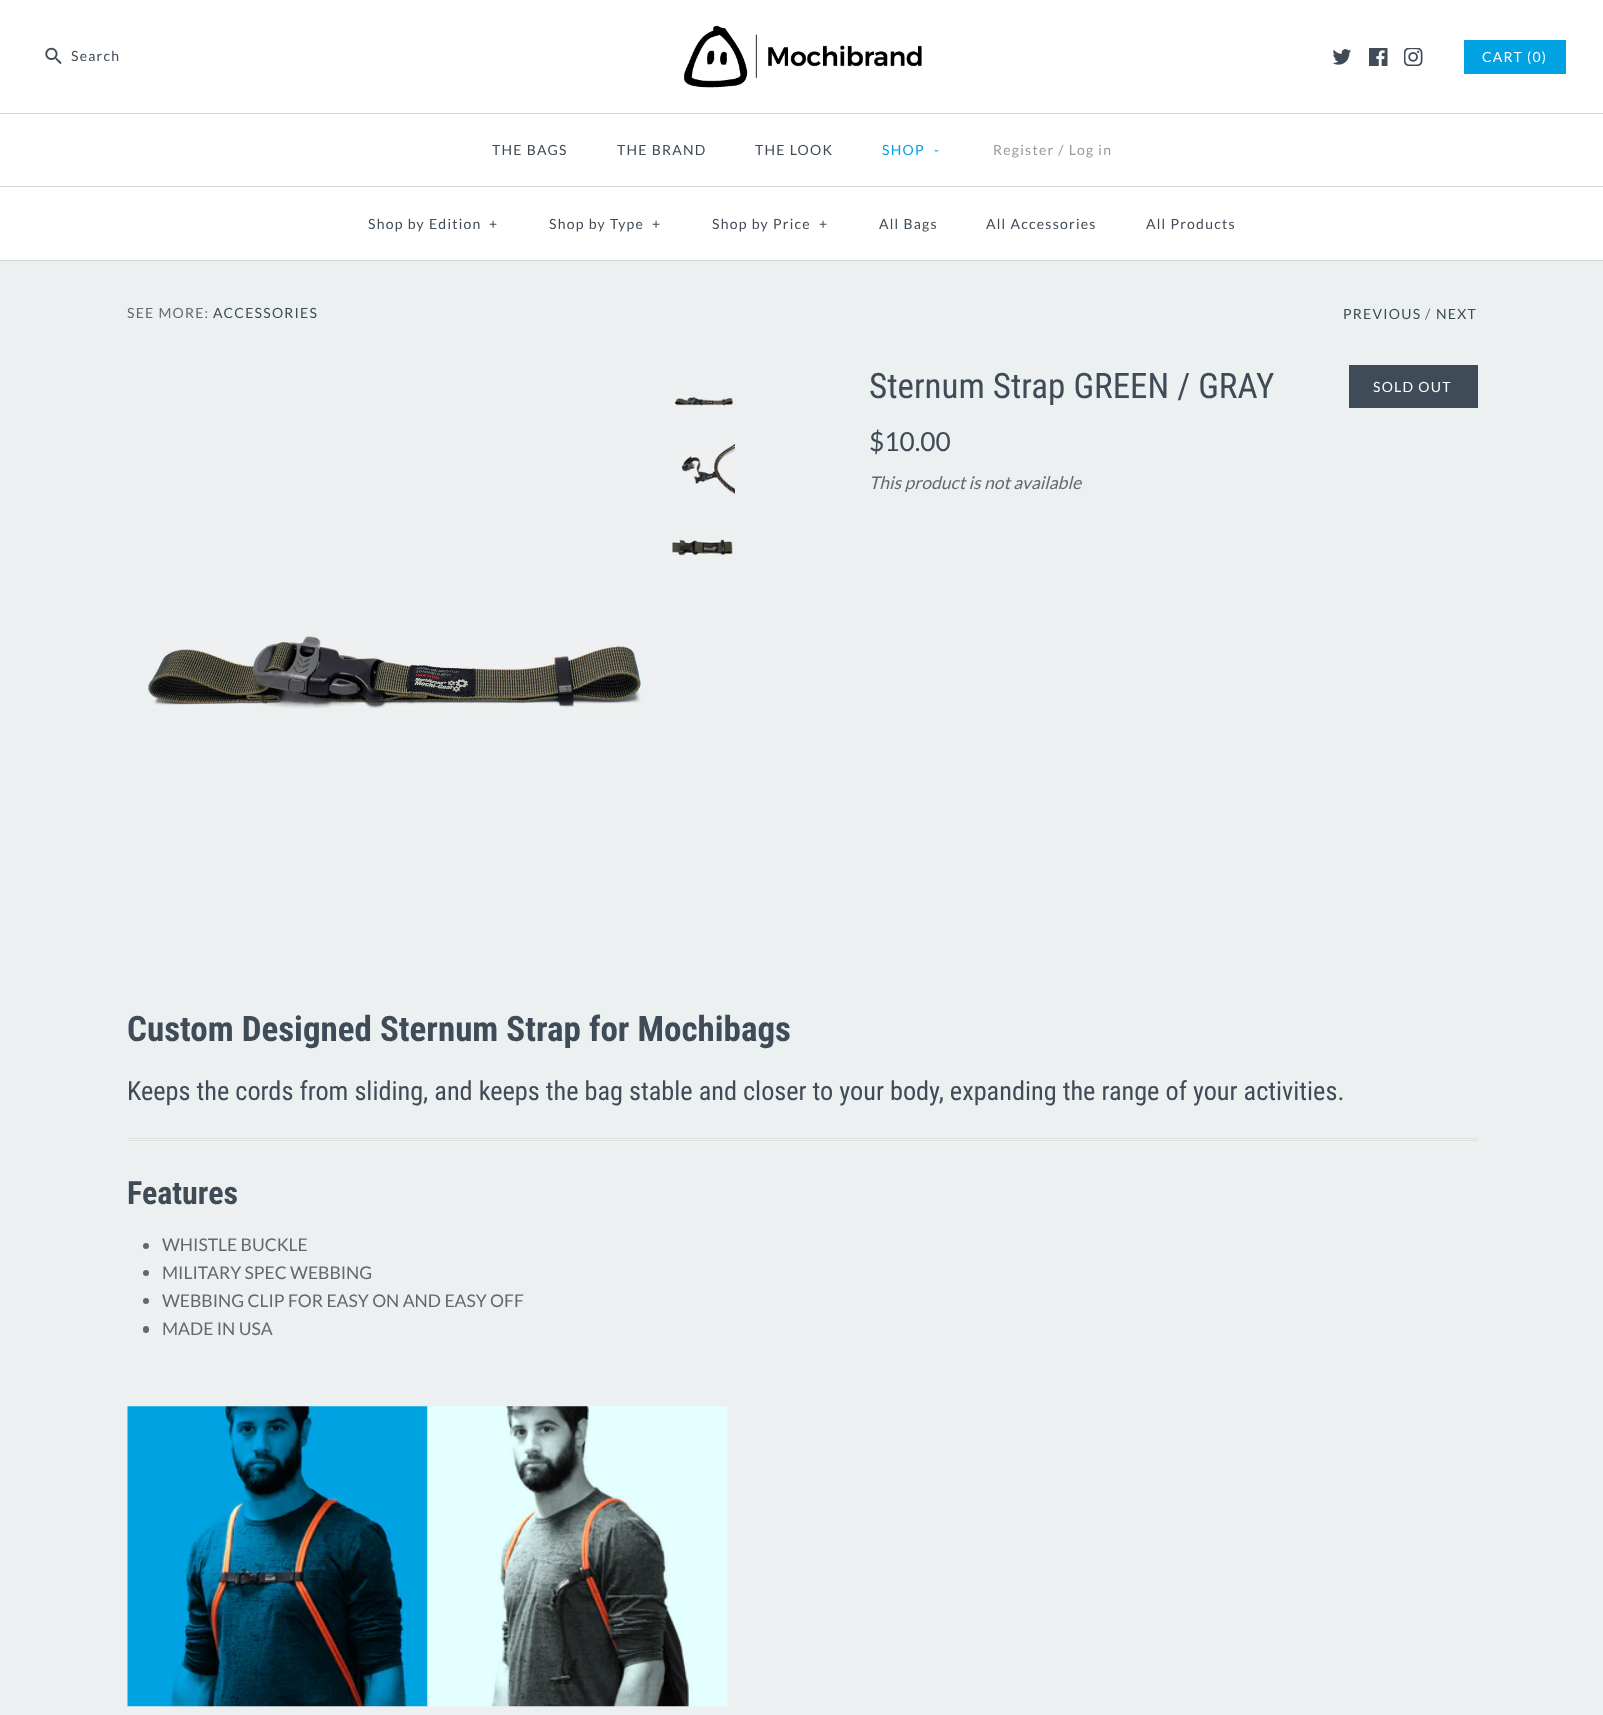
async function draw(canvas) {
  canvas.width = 1603
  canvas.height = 1715
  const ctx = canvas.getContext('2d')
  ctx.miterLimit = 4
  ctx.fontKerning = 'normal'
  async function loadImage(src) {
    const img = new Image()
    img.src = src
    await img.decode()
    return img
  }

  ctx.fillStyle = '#ecf0f1'
  ctx.fillRect(0, 0, 1603, 1715)
  ctx.fillStyle = '#fff'
  ctx.fillRect(0, 0, 1603, 113)
  ctx.drawImage(await loadImage('image0.png'), 683, 25, 239, 63)
  ctx.drawImage(await loadImage('image1.png'), 45, 47, 17, 18)
  ctx.letterSpacing = '1.25px'
  ctx.font = '14px Lato'
  ctx.fillStyle = '#3f4b57'
  ctx.fillText('Search', 71, 61)
  ctx.drawImage(await loadImage('image2.png'), 1333, 49, 18, 16)
  ctx.drawImage(await loadImage('image3.png'), 1369, 48, 19, 18)
  ctx.drawImage(await loadImage('image4.png'), 1404, 48, 19, 18)
  ctx.fillStyle = '#00a2e1'
  ctx.fillRect(1464, 40, 102, 34)
  ctx.fillStyle = '#fff'
  ctx.fillText('CART (0)', 1482, 62)
  ctx.fillStyle = '#d1d6d9'
  ctx.fillRect(0, 260, 1603, 1)
  ctx.fillStyle = '#fff'
  ctx.fillRect(0, 114, 1603, 72)
  ctx.fillStyle = '#d1d6d9'
  ctx.fillRect(0, 113, 1603, 1)
  ctx.fillStyle = '#3f4b57'
  ctx.fillText('THE BAGS', 492, 155)
  ctx.fillText('THE BRAND', 617, 155)
  ctx.fillText('THE LOOK', 755, 155)
  ctx.fillStyle = '#00a2e1'
  ctx.fillText('SHOP', 882, 155)
  ctx.fillText('-', 934, 155)
  ctx.fillStyle = '#999'
  ctx.fillText('Register / Log in', 993, 155)
  ctx.fillStyle = '#fff'
  ctx.fillRect(0, 187, 1603, 73)
  ctx.fillStyle = '#d1d6d9'
  ctx.fillRect(0, 186, 1603, 1)
  ctx.fillStyle = '#3f4b57'
  ctx.fillText('Shop by Edition', 368, 229)
  ctx.fillText('+', 489, 229)
  ctx.fillText('Shop by Type', 549, 229)
  ctx.fillText('+', 652, 229)
  ctx.fillText('Shop by Price', 712, 229)
  ctx.fillText('+', 819, 229)
  ctx.fillText('All Bags', 879, 229)
  ctx.fillText('All Accessories', 986, 229)
  ctx.fillText('All Products', 1146, 229)
  ctx.fillStyle = '#64686b'
  ctx.fillText('SEE MORE:', 127, 318)
  ctx.fillStyle = '#3d4c4f'
  ctx.fillText('ACCESSORIES', 213, 318)
  ctx.fillText('PREVIOUS', 1343, 319)
  ctx.fillStyle = '#64686b'
  ctx.fillText('/', 1425, 319)
  ctx.fillStyle = '#3d4c4f'
  ctx.fillText('NEXT', 1436, 319)
  ctx.drawImage(await loadImage('image5.png'), 673, 396, 61, 13)
  ctx.drawImage(await loadImage('image6.png'), 681, 443, 54, 52)
  ctx.drawImage(await loadImage('image7.png'), 672, 538, 62, 18)
  ctx.drawImage(await loadImage('image8.png'), 147, 636, 495, 73)
  ctx.letterSpacing = '0px'
  ctx.font = '35px Roboto Condensed'
  ctx.fillStyle = '#3f4b57'
  ctx.fillText('Sternum Strap GREEN / GRAY', 869, 398)
  ctx.fillRect(1349, 365, 129, 43)
  ctx.letterSpacing = '1.25px'
  ctx.font = '14px Lato'
  ctx.fillStyle = '#fff'
  ctx.fillText('SOLD OUT', 1373, 392)
  ctx.letterSpacing = '0px'
  ctx.font = '26.25px Lato'
  ctx.fillStyle = '#3f4b57'
  ctx.fillText('$10.00', 869, 451)
  ctx.font = 'italic 17.5px Lato'
  ctx.fillStyle = '#64686b'
  ctx.fillText('This product is not available', 869, 489)
  ctx.font = 'bold 35px Roboto Condensed'
  ctx.fillStyle = '#3f4b57'
  ctx.fillText('Custom Designed Sternum Strap for Mochibags', 127, 1041)
  ctx.font = '26.25px Roboto Condensed'
  ctx.fillText('Keeps the cords from sliding, and keeps the bag stable and closer to your body, expanding the range of your activities.', 127, 1100)
  ctx.fillStyle = '#e2e2e2'
  ctx.fillRect(128, 1138, 1350, 1)
  ctx.fillRect(128, 1140, 1350, 1)
  ctx.font = 'bold 32px Roboto Condensed'
  ctx.fillStyle = '#3f4b57'
  ctx.fillText('Features', 127, 1204)
  ctx.fillStyle = '#64686b'
  ctx.beginPath()
  ctx.arc(146, 1246, 3, 0, 2 * Math.PI)
  ctx.fill()
  ctx.font = '17.5px Lato'
  ctx.fillText('WHISTLE BUCKLE', 162, 1251)
  ctx.beginPath()
  ctx.arc(146, 1273, 3, 0, 2 * Math.PI)
  ctx.fill()
  ctx.fillText('MILITARY SPEC WEBBING', 162, 1279)
  ctx.beginPath()
  ctx.arc(146, 1301, 3, 0, 2 * Math.PI)
  ctx.fill()
  ctx.fillText('WEBBING CLIP FOR EASY ON AND EASY OFF', 162, 1307)
  ctx.beginPath()
  ctx.roundRect(143, 1326, 6, 7, 3)
  ctx.fill()
  ctx.fillText('MADE IN USA', 162, 1335)
  ctx.drawImage(await loadImage('image9.png'), 127, 1406, 301, 301)
  ctx.drawImage(await loadImage('image10.png'), 427, 1406, 301, 301)
}

draw(document.querySelector('canvas'))
